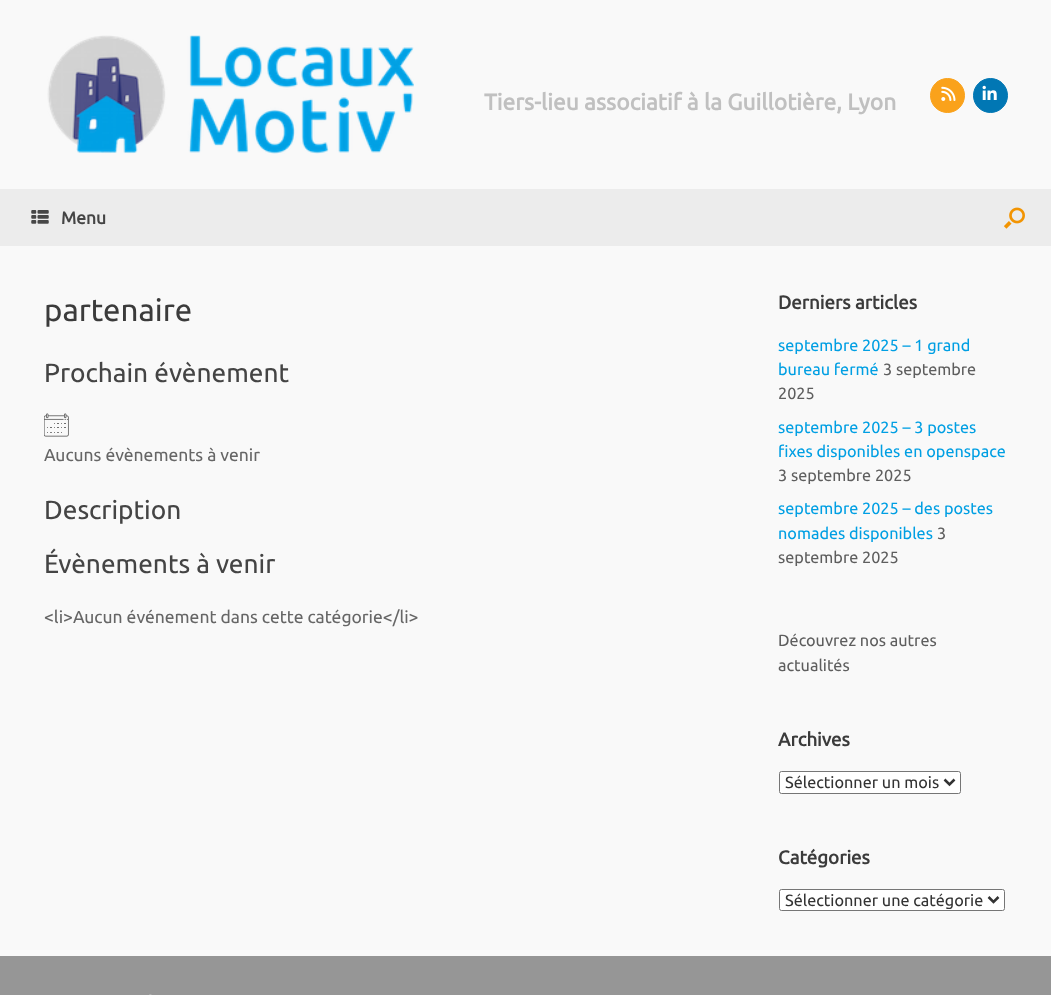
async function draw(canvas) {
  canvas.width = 1051
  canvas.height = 995
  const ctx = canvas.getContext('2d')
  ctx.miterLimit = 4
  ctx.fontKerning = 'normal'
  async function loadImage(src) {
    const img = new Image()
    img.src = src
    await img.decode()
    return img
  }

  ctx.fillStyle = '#969696'
  ctx.fillRect(0, 0, 1051, 995)
  ctx.fillStyle = '#f9f9f9'
  ctx.fillRect(0, 0, 1051, 189)
  ctx.drawImage(await loadImage('image0.png'), 47, 35, 367, 119)
  ctx.font = 'bold 22.75px Ubuntu'
  ctx.fillStyle = '#c0c0c0'
  ctx.fillText('Tiers-lieu associatif à la Guillotière, Lyon', 484, 110)
  ctx.fillStyle = '#faa21b'
  ctx.beginPath()
  ctx.arc(947.5, 95.5, 17, 0, 2 * Math.PI)
  ctx.fill()
  ctx.strokeStyle = '#faa21b'
  ctx.stroke()
  ctx.drawImage(await loadImage('image1.png'), 941, 86, 15, 15)
  ctx.fillStyle = '#0177b4'
  ctx.beginPath()
  ctx.arc(990.5, 95.5, 17, 0, 2 * Math.PI)
  ctx.fill()
  ctx.strokeStyle = '#0177b4'
  ctx.stroke()
  ctx.drawImage(await loadImage('image2.png'), 982, 85, 15, 15)
  ctx.fillStyle = '#ececec'
  ctx.fillRect(0, 189, 1051, 57)
  ctx.drawImage(await loadImage('image3.png'), 31, 210, 18, 14)
  ctx.font = 'bold 17.5px Ubuntu'
  ctx.fillStyle = '#444'
  ctx.fillText('Menu', 61, 224)
  ctx.drawImage(await loadImage('image4.png'), 1003, 207, 22, 22)
  ctx.fillStyle = '#f9f9f9'
  ctx.fillRect(0, 246, 1051, 710)
  ctx.font = '31.25px Ubuntu'
  ctx.fillStyle = '#3b3b3b'
  ctx.fillText('partenaire', 44, 321)
  ctx.font = '26.25px Ubuntu'
  ctx.fillStyle = '#444'
  ctx.fillText('Prochain évènement', 44, 382)
  ctx.drawImage(await loadImage('image5.png'), 44, 413, 25, 24)
  ctx.font = '17.5px Ubuntu'
  ctx.fillStyle = '#666'
  ctx.fillText('Aucuns évènements à venir', 44, 461)
  ctx.font = '26.25px Ubuntu'
  ctx.fillStyle = '#444'
  ctx.fillText('Description', 44, 519)
  ctx.fillText('Évènements à venir', 44, 573)
  ctx.font = '17.5px Ubuntu'
  ctx.fillStyle = '#666'
  ctx.fillText('<li>Aucun événement dans cette catégorie<\/li>', 44, 623)
  ctx.font = 'bold 18.75px Ubuntu'
  ctx.fillStyle = '#3b3b3b'
  ctx.fillText('Derniers articles', 778, 309)
  ctx.font = '16.25px Ubuntu'
  ctx.fillStyle = '#009fe3'
  ctx.fillText('septembre 2025 – 1 grand', 778, 351)
  ctx.fillText('bureau fermé', 778, 375)
  ctx.fillStyle = '#5e5e5e'
  ctx.fillText('3 septembre', 883, 375)
  ctx.fillText('2025', 778, 399)
  ctx.fillStyle = '#009fe3'
  ctx.fillText('septembre 2025 – 3 postes', 778, 433)
  ctx.fillText('fixes disponibles en openspace', 778, 457)
  ctx.fillStyle = '#5e5e5e'
  ctx.fillText('3 septembre 2025', 778, 481)
  ctx.fillStyle = '#009fe3'
  ctx.fillText('septembre 2025 – des postes', 778, 514)
  ctx.fillText('nomades disponibles', 778, 539)
  ctx.fillStyle = '#5e5e5e'
  ctx.fillText('3', 937, 539)
  ctx.fillText('septembre 2025', 778, 563)
  ctx.fillText('Découvrez nos autres', 778, 646)
  ctx.fillText('actualités', 778, 671)
  ctx.font = 'bold 18.75px Ubuntu'
  ctx.fillStyle = '#3b3b3b'
  ctx.fillText('Archives', 778, 746)
  ctx.fillStyle = '#fff'
  ctx.beginPath()
  ctx.roundRect(779.5, 771.5, 181, 22, 2)
  ctx.fill()
  ctx.strokeStyle = '#767676'
  ctx.stroke()
  ctx.beginPath()
  ctx.moveTo(944.5, 779.5)
  ctx.lineTo(949.5, 784.5)
  ctx.lineTo(954.5, 779.5)
  ctx.strokeStyle = '#333'
  ctx.lineWidth = 2.5
  ctx.stroke()
  ctx.font = '16.25px Ubuntu'
  ctx.fillStyle = '#333'
  ctx.fillText('Sélectionner un mois', 785, 788)
  ctx.font = 'bold 18.75px Ubuntu'
  ctx.fillStyle = '#3b3b3b'
  ctx.fillText('Catégories', 778, 864)
  ctx.fillStyle = '#fff'
  ctx.beginPath()
  ctx.roundRect(779.5, 889.5, 225, 21, 2)
  ctx.fill()
  ctx.strokeStyle = '#767676'
  ctx.lineWidth = 1
  ctx.stroke()
  ctx.beginPath()
  ctx.moveTo(988.5, 897)
  ctx.lineTo(993.5, 902)
  ctx.lineTo(998.5, 897)
  ctx.strokeStyle = '#333'
  ctx.lineWidth = 2.5
  ctx.stroke()
  ctx.font = '16.25px Ubuntu'
  ctx.fillStyle = '#333'
  ctx.fillText('Sélectionner une catégorie', 785, 906)
  ctx.drawImage(await loadImage('image6.png'), 149, 994, 3, 1)
}

draw(document.querySelector('canvas'))
